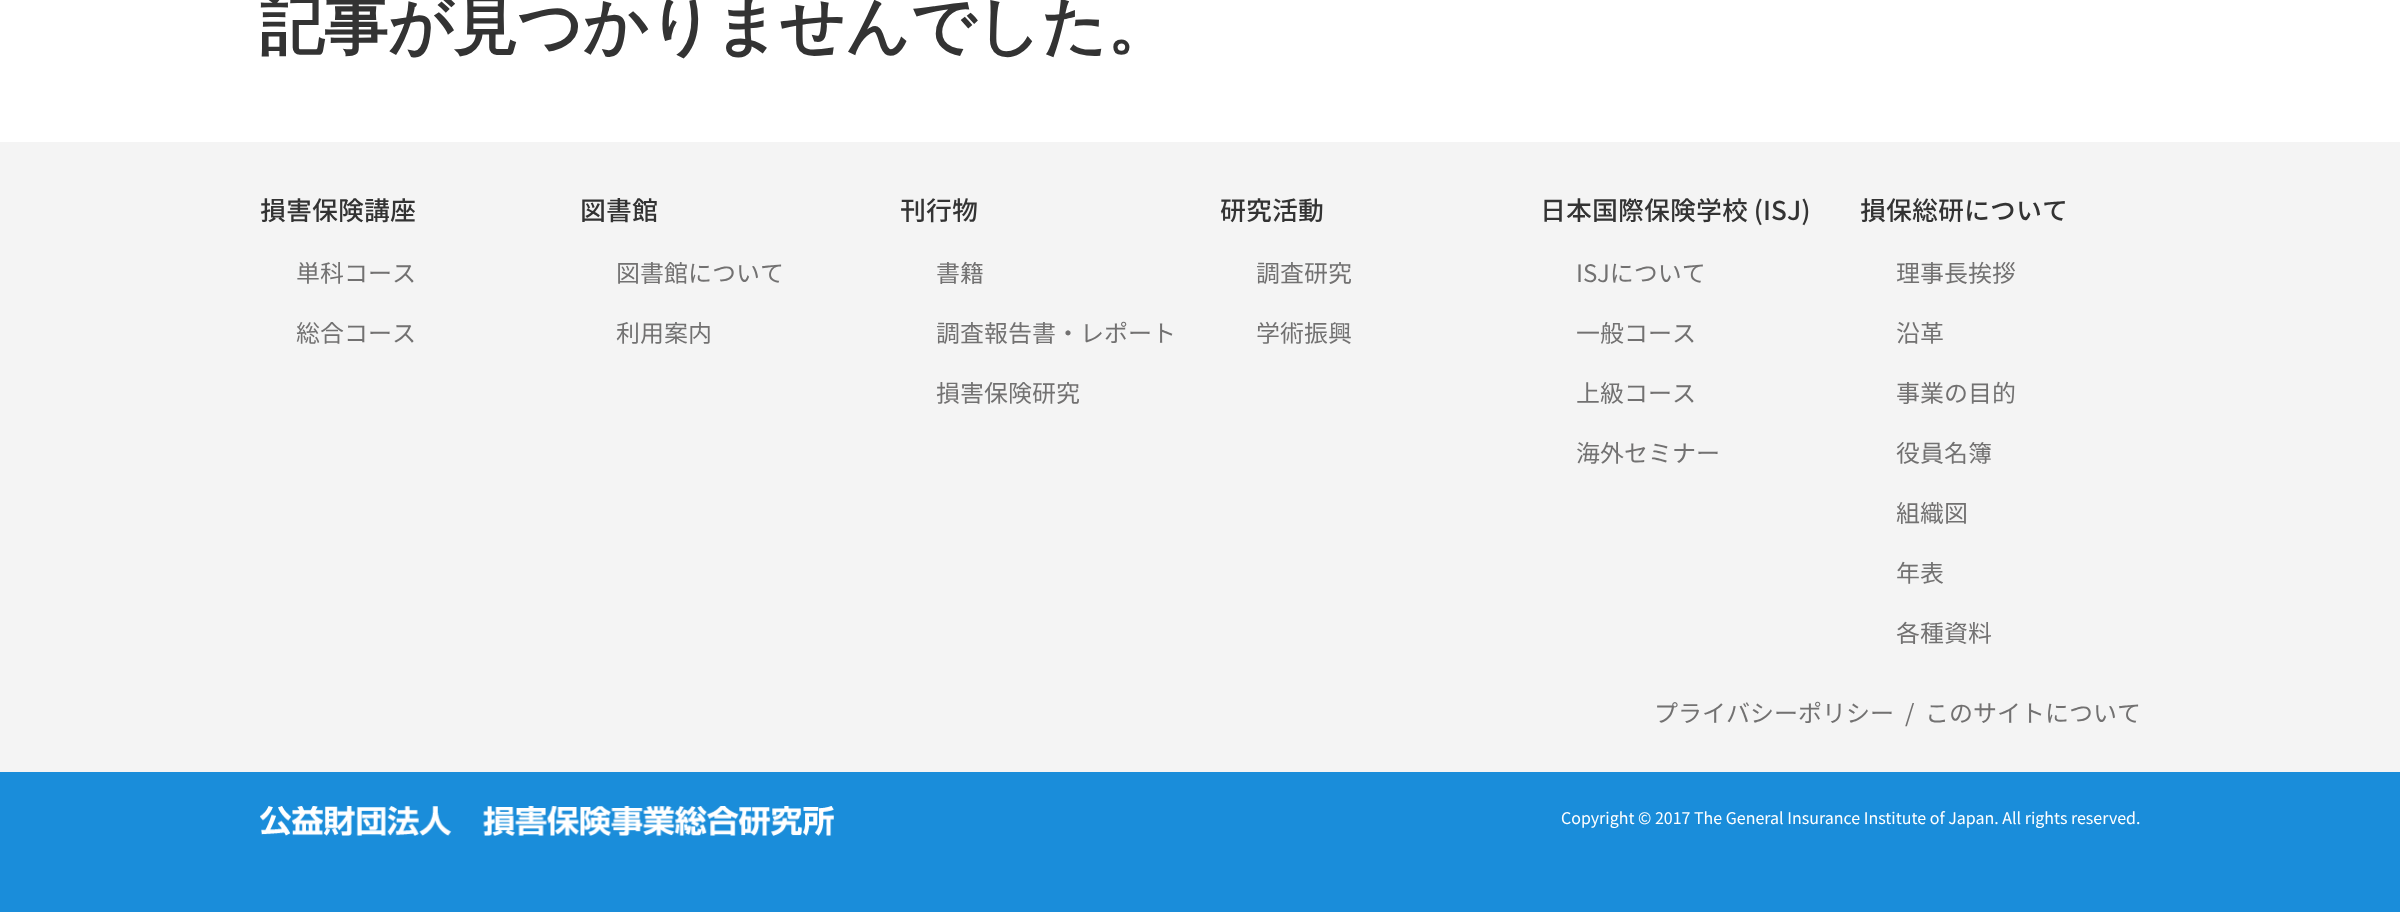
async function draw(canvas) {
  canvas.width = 2400
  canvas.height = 912
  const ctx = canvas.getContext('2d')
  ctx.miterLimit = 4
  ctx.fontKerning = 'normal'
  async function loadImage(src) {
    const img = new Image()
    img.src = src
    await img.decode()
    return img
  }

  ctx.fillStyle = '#fff'
  ctx.fillRect(0, 0, 2400, 912)
  ctx.font = 'bold 64px WenQuanYi Zen Hei'
  ctx.fillStyle = '#333'
  ctx.fillText('記事が見つかりませんでした。', 260, 48)
  ctx.fillStyle = '#f4f4f4'
  ctx.fillRect(0, 142, 2400, 630)
  ctx.font = '500 26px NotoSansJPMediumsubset'
  ctx.fillStyle = '#333'
  ctx.fillText('損害保険講座', 260, 220)
  ctx.font = '24px Noto Sans JP'
  ctx.fillStyle = '#727171'
  ctx.fillText('単科コース', 296, 282)
  ctx.fillText('総合コース', 296, 342)
  ctx.font = '500 26px NotoSansJPMediumsubset'
  ctx.fillStyle = '#333'
  ctx.fillText('図書館', 580, 220)
  ctx.font = '24px Noto Sans JP'
  ctx.fillStyle = '#727171'
  ctx.fillText('図書館について', 616, 282)
  ctx.fillText('利用案内', 616, 342)
  ctx.font = '500 26px NotoSansJPMediumsubset'
  ctx.fillStyle = '#333'
  ctx.fillText('刊行物', 900, 220)
  ctx.font = '24px Noto Sans JP'
  ctx.fillStyle = '#727171'
  ctx.fillText('書籍', 936, 282)
  ctx.fillText('調査報告書・レポート', 936, 342)
  ctx.fillText('損害保険研究', 936, 402)
  ctx.font = '500 26px NotoSansJPMediumsubset'
  ctx.fillStyle = '#333'
  ctx.fillText('研究活動', 1220, 220)
  ctx.font = '24px Noto Sans JP'
  ctx.fillStyle = '#727171'
  ctx.fillText('調査研究', 1256, 282)
  ctx.fillText('学術振興', 1256, 342)
  ctx.font = '500 26px NotoSansJPMediumsubset'
  ctx.fillStyle = '#333'
  ctx.fillText('日本国際保険学校 (ISJ)', 1540, 220)
  ctx.font = '24px Noto Sans JP'
  ctx.fillStyle = '#727171'
  ctx.fillText('ISJについて', 1576, 282)
  ctx.fillText('一般コース', 1576, 342)
  ctx.fillText('上級コース', 1576, 402)
  ctx.fillText('海外セミナー', 1576, 462)
  ctx.font = '500 26px NotoSansJPMediumsubset'
  ctx.fillStyle = '#333'
  ctx.fillText('損保総研について', 1860, 220)
  ctx.font = '24px Noto Sans JP'
  ctx.fillStyle = '#727171'
  ctx.fillText('理事長挨拶', 1896, 282)
  ctx.fillText('沿革', 1896, 342)
  ctx.fillText('事業の目的', 1896, 402)
  ctx.fillText('役員名簿', 1896, 462)
  ctx.fillText('組織図', 1896, 522)
  ctx.fillText('年表', 1896, 582)
  ctx.fillText('各種資料', 1896, 642)
  ctx.fillText('プライバシーポリシー', 1654, 722)
  ctx.fillText('/', 1905, 722)
  ctx.fillText('このサイトについて', 1925, 722)
  ctx.fillStyle = '#1a8dda'
  ctx.fillRect(0, 772, 2400, 140)
  ctx.drawImage(await loadImage('image0.png'), 260, 806, 574, 30)
  ctx.font = '16px Noto Sans JP'
  ctx.fillStyle = '#fff'
  ctx.fillText('Copyright © 2017 The General Insurance Institute of Japan. All rights reserved.', 1561, 824)
}

draw(document.querySelector('canvas'))
